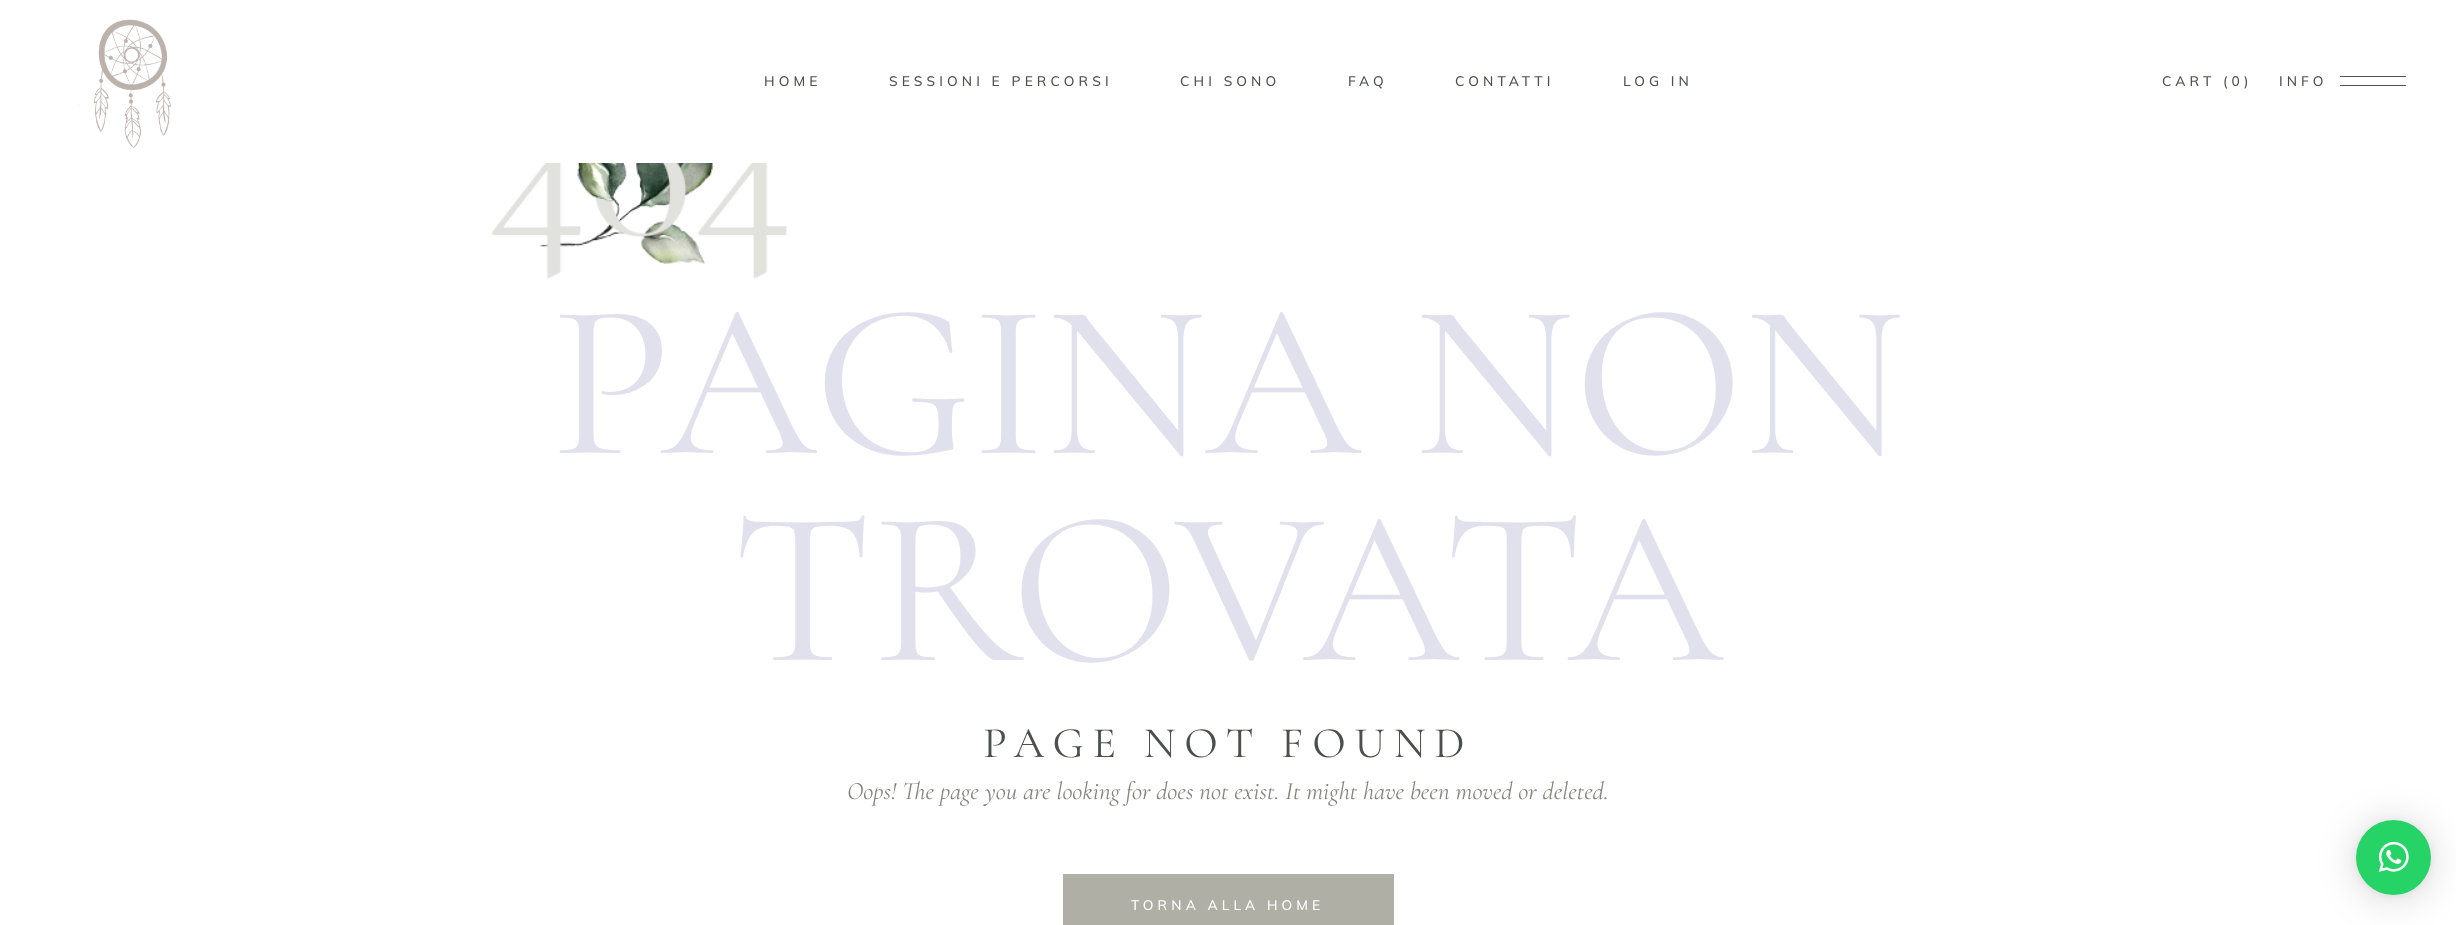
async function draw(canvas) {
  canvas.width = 2456
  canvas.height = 925
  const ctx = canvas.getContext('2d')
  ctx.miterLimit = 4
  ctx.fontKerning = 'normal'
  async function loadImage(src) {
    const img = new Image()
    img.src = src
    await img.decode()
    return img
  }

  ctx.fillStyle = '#fff'
  ctx.fillRect(0, 0, 2456, 925)
  ctx.drawImage(await loadImage('image0.png'), 79, 19, 92, 129)
  ctx.letterSpacing = '4.1px'
  ctx.font = '500 13.75px Muli'
  ctx.fillStyle = '#4d504a'
  ctx.fillText('HOME', 764, 86)
  ctx.fillText('SESSIONI E PERCORSI', 889, 86)
  ctx.fillText('CHI SONO', 1180, 86)
  ctx.fillText('FAQ', 1348, 86)
  ctx.fillText('CONTATTI', 1455, 86)
  ctx.fillText('LOG IN', 1623, 86)
  ctx.fillText('CART', 2162, 86)
  ctx.fillText('(0)', 2223, 86)
  ctx.fillText('INFO', 2279, 86)
  ctx.beginPath()
  ctx.roundRect(2340, 76, 66, 1, 0.5)
  ctx.fill()
  ctx.beginPath()
  ctx.roundRect(2340, 85, 66, 1, 0.5)
  ctx.fill()
  ctx.drawImage(await loadImage('image1.png'), 491, 163, 296, 116)
  ctx.letterSpacing = '0px'
  ctx.font = '221.25px Cormorant Garamond'
  ctx.fillStyle = '#e1e1ed'
  ctx.fillText('PAGINA NON', 551, 453)
  ctx.fillText('TROVATA', 732, 660)
  ctx.letterSpacing = '8.75px'
  ctx.font = '43.75px Cormorant Garamond'
  ctx.fillStyle = '#4d504a'
  ctx.fillText('PAGE NOT FOUND', 983, 757)
  ctx.letterSpacing = '0px'
  ctx.font = 'italic 25px Cormorant Garamond'
  ctx.fillStyle = '#84847c'
  ctx.fillText('Oops! The page you are looking for does not exist. It might have been moved or deleted.', 847, 799)
  ctx.fillStyle = '#afafa5'
  ctx.fillRect(1063, 874, 331, 51)
  ctx.letterSpacing = '4.1px'
  ctx.font = '500 13.75px Muli'
  ctx.fillStyle = '#fff'
  ctx.fillText('TORNA ALLA HOME', 1131, 910)
  ctx.fillStyle = '#00000029'
  ctx.filter = 'blur(20px)'
  ctx.beginPath()
  ctx.roundRect(2356, 823, 75, 75, 37.5)
  ctx.fill()
  ctx.filter = 'none'
  ctx.fillStyle = '#0000000f'
  ctx.filter = 'blur(4px)'
  ctx.beginPath()
  ctx.roundRect(2356, 821, 75, 75, 37.5)
  ctx.fill()
  ctx.filter = 'none'
  ctx.fillStyle = '#25d366'
  ctx.beginPath()
  ctx.arc(2393.5, 857.5, 37.5, 0, 2 * Math.PI)
  ctx.fill()
  ctx.drawImage(await loadImage('image2.png'), 2378, 841, 31, 31)
}

draw(document.querySelector('canvas'))
